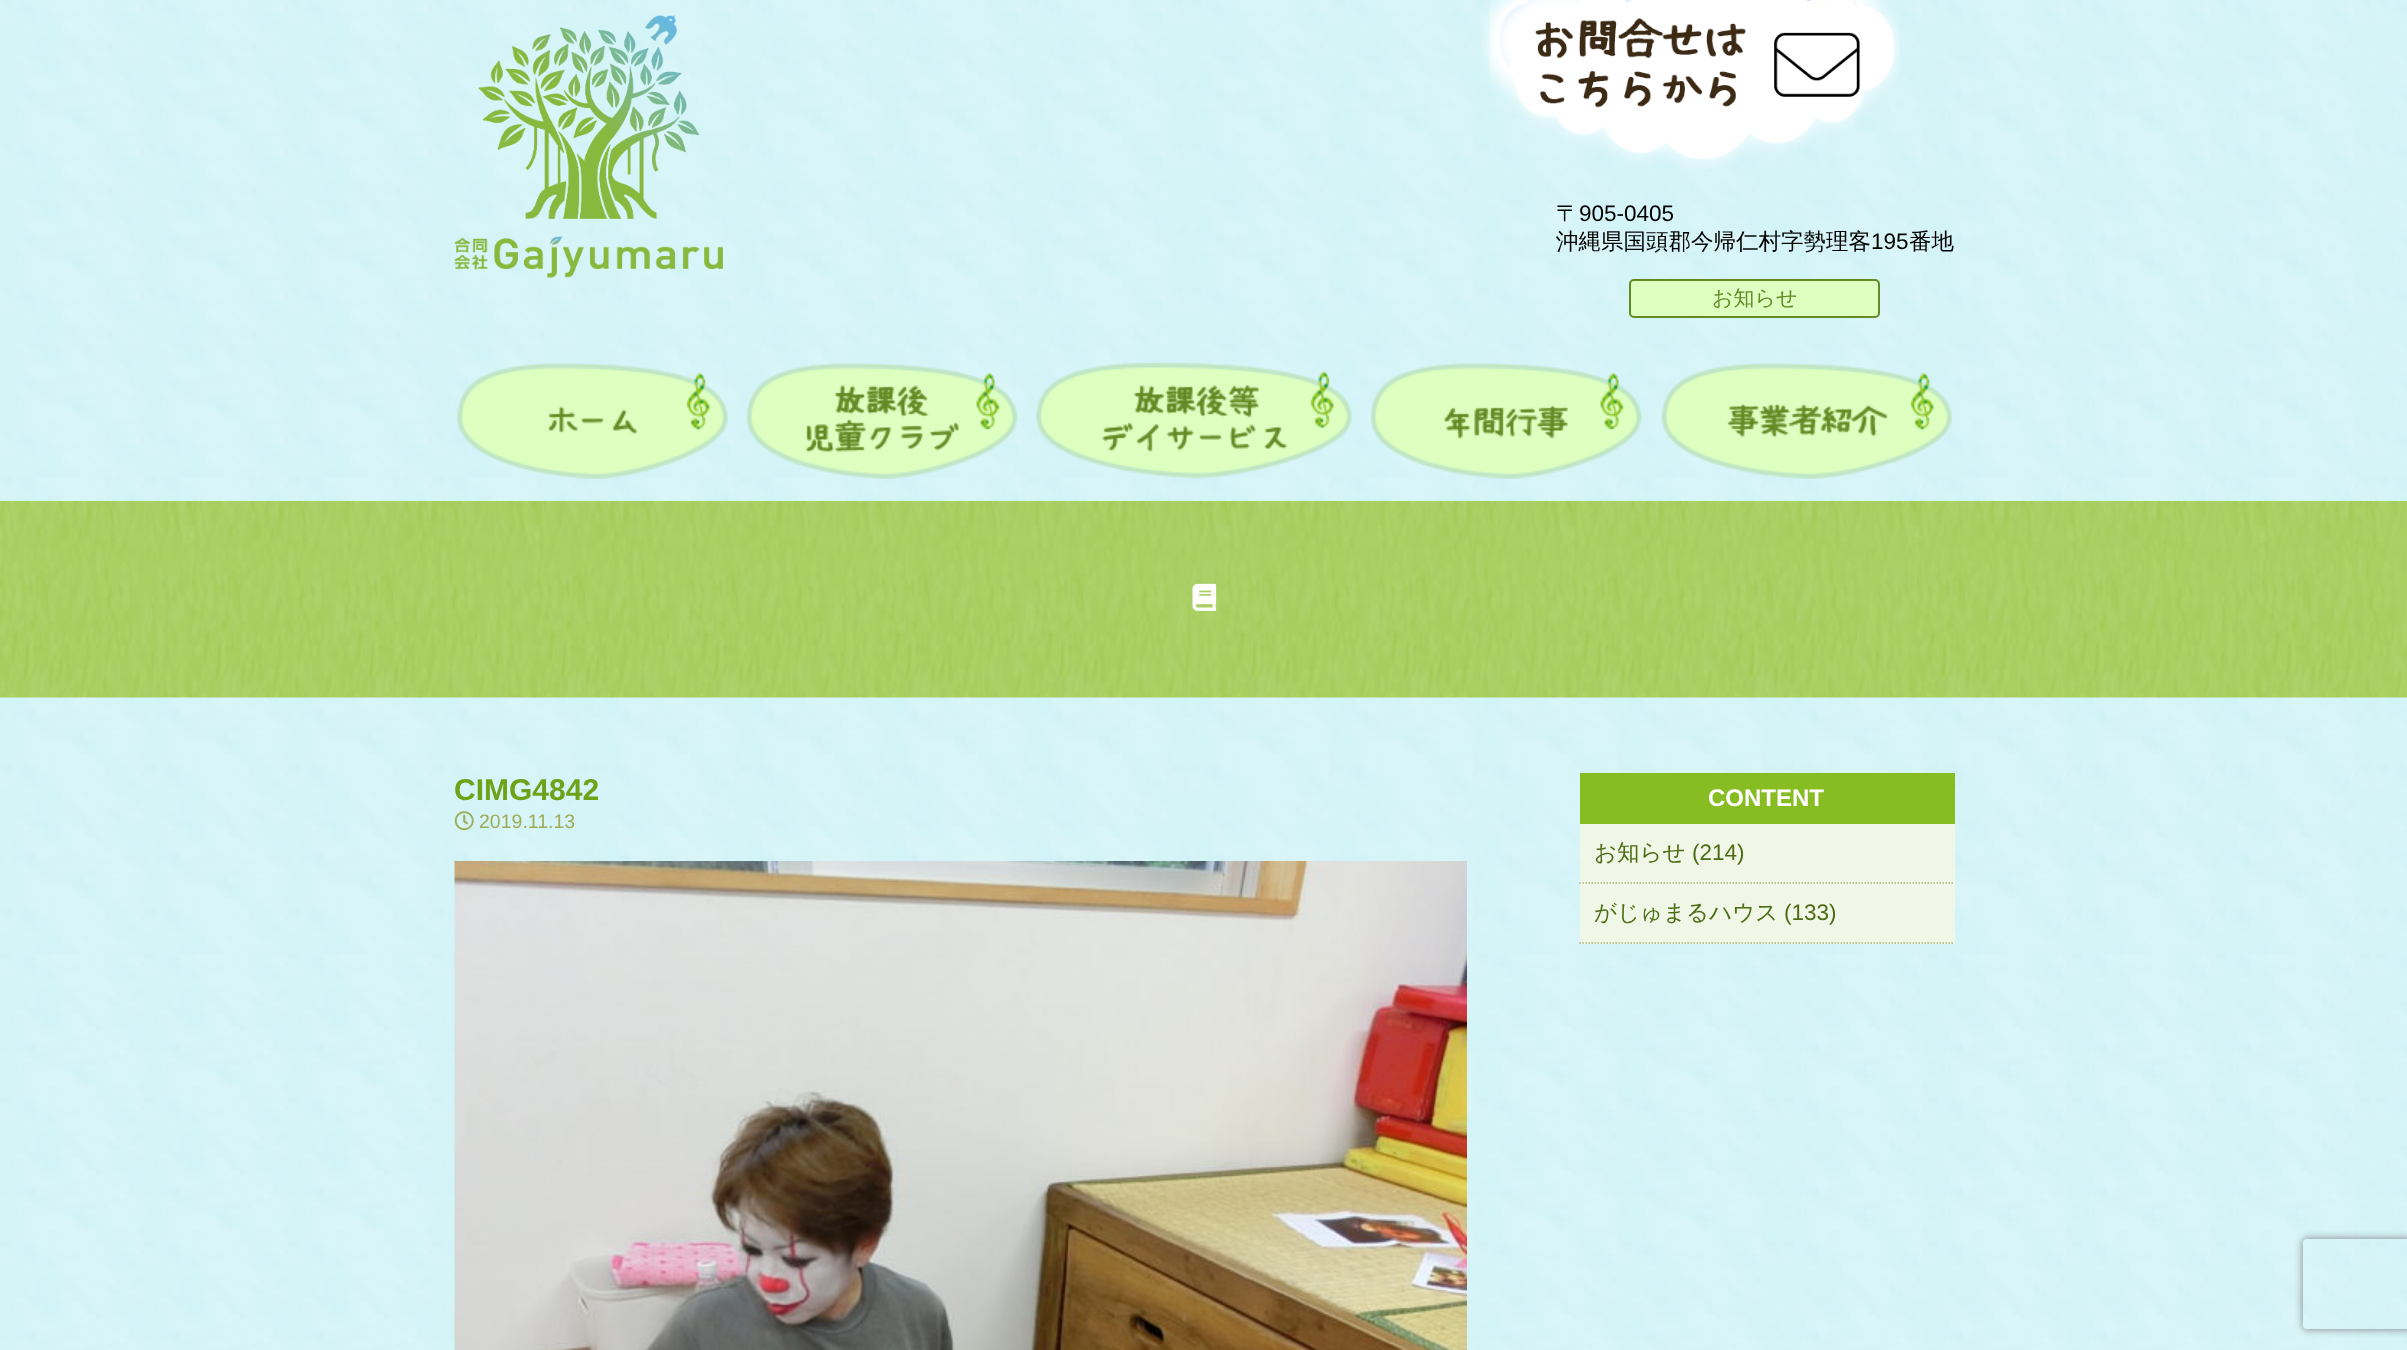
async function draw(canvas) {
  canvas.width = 2407
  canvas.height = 1350
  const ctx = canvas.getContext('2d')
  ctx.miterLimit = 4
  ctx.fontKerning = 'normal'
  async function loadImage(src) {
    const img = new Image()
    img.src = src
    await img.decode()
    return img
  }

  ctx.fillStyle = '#fff'
  ctx.fillRect(0, 0, 2407, 1350)
  ctx.drawImage(await loadImage('image0.png'), 0, 0, 2407, 1350)
  ctx.drawImage(await loadImage('image1.png'), 454, 15, 269, 263)
  ctx.drawImage(await loadImage('image2.png'), 1481, 0, 420, 169)
  ctx.font = '500 22.5px WenQuanYi Zen Hei'
  ctx.fillStyle = '#000'
  ctx.fillText('〒', 1556, 221)
  ctx.font = '22.5px Liberation Sans'
  ctx.fillText('905-0405', 1579, 221)
  ctx.font = '500 22.5px WenQuanYi Zen Hei'
  ctx.fillText('沖縄県国頭郡今帰仁村字勢理客', 1556, 249)
  ctx.font = '22.5px Liberation Sans'
  ctx.fillText('195', 1871, 249)
  ctx.font = '500 22.5px WenQuanYi Zen Hei'
  ctx.fillText('番地', 1909, 249)
  ctx.fillStyle = '#ddffc0'
  ctx.beginPath()
  ctx.roundRect(1630, 280, 249, 37, 4)
  ctx.fill()
  ctx.strokeStyle = '#648a25'
  ctx.lineWidth = 2
  ctx.stroke()
  ctx.font = '500 21px WenQuanYi Zen Hei'
  ctx.fillStyle = '#648a25'
  ctx.fillText('お知らせ', 1712, 305)
  ctx.drawImage(await loadImage('image3.png'), 457, 363, 271, 116)
  ctx.drawImage(await loadImage('image4.png'), 746, 363, 272, 116)
  ctx.drawImage(await loadImage('image5.png'), 1036, 362, 316, 117)
  ctx.drawImage(await loadImage('image6.png'), 1370, 363, 272, 116)
  ctx.drawImage(await loadImage('image7.png'), 1661, 363, 291, 116)
  ctx.drawImage(await loadImage('image8.png'), 0, 501, 2407, 197)
  ctx.drawImage(await loadImage('image9.png'), 1192, 583, 25, 28)
  ctx.font = 'bold 30px Liberation Sans'
  ctx.fillStyle = '#6ea218'
  ctx.fillText('CIMG4842', 454, 800)
  ctx.drawImage(await loadImage('image10.png'), 454, 811, 20, 20)
  ctx.font = '19.5px Liberation Sans'
  ctx.fillStyle = '#9dac57'
  ctx.fillText('2019.11.13', 479, 828)
  ctx.drawImage(await loadImage('image11.png'), 454, 861, 1013, 489)
  ctx.fillStyle = '#87bc23'
  ctx.fillRect(1580, 773, 375, 51)
  ctx.font = 'bold 24px Liberation Sans'
  ctx.fillStyle = '#fff'
  ctx.fillText('CONTENT', 1708, 806)
  ctx.fillStyle = '#f1f7e6'
  ctx.fillRect(1580, 824, 375, 120)
  ctx.beginPath()
  ctx.moveTo(1579.5, 883)
  ctx.lineTo(1954.5, 883)
  ctx.strokeStyle = '#a7b580'
  ctx.lineWidth = 1.5
  ctx.setLineDash([1.5, 1.5])
  ctx.stroke()
  ctx.font = '500 22.5px WenQuanYi Zen Hei'
  ctx.fillStyle = '#4c6c16'
  ctx.fillText('お知らせ', 1594, 860)
  ctx.font = '22.5px Liberation Sans'
  ctx.fillText('(214)', 1692, 860)
  ctx.beginPath()
  ctx.moveTo(1579.5, 943)
  ctx.lineTo(1954.5, 943)
  ctx.stroke()
  ctx.font = '500 22.5px WenQuanYi Zen Hei'
  ctx.fillText('がじゅまるハウス', 1594, 920)
  ctx.font = '22.5px Liberation Sans'
  ctx.fillText('(133)', 1784, 920)
  ctx.save()
  ctx.beginPath()
  ctx.moveTo(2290, 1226)
  ctx.lineTo(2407, 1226)
  ctx.lineTo(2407, 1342)
  ctx.lineTo(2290, 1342)
  ctx.closePath()
  ctx.moveTo(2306, 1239)
  ctx.lineTo(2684, 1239)
  ctx.bezierCurveTo(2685.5, 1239, 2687, 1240.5, 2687, 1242)
  ctx.lineTo(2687, 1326)
  ctx.bezierCurveTo(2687, 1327.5, 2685.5, 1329, 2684, 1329)
  ctx.lineTo(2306, 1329)
  ctx.bezierCurveTo(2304.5, 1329, 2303, 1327.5, 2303, 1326)
  ctx.lineTo(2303, 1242)
  ctx.bezierCurveTo(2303, 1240.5, 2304.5, 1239, 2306, 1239)
  ctx.closePath()
  ctx.clip('evenodd')
  ctx.fillStyle = '#808080'
  ctx.filter = 'blur(4px)'
  ctx.beginPath()
  ctx.roundRect(2303, 1239, 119, 90, 3)
  ctx.fill()
  ctx.filter = 'none'
  ctx.restore()
}

draw(document.querySelector('canvas'))
